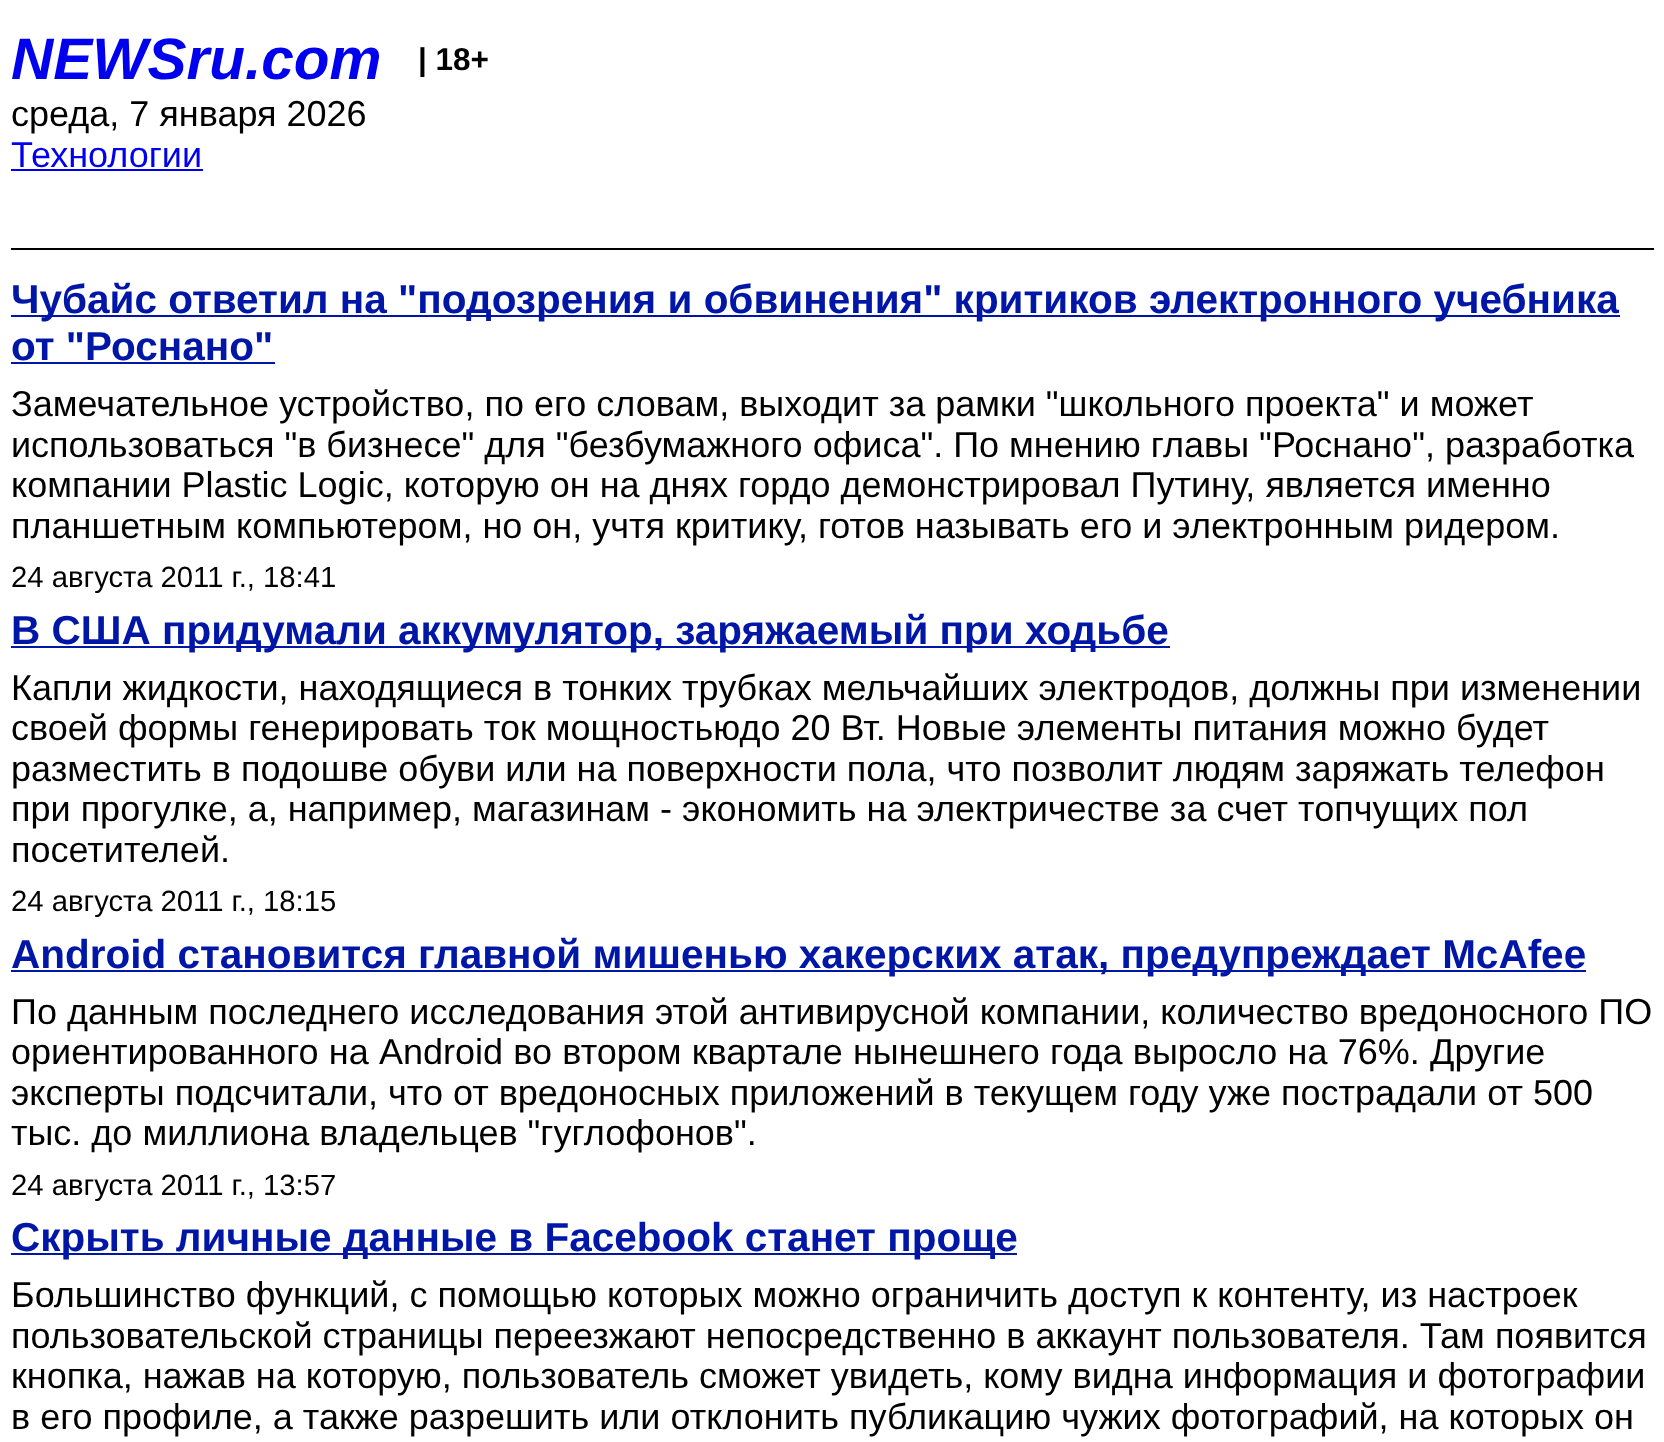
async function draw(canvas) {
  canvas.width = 1664
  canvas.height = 1442
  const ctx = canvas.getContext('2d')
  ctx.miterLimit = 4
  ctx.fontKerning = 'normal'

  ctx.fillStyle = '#fff'
  ctx.fillRect(0, 0, 1664, 1442)
  ctx.fillStyle = '#000'
  ctx.fillRect(11, 248, 1643, 2)
  ctx.font = 'italic bold 58.5px Liberation Sans'
  ctx.fillStyle = '#00e'
  ctx.fillText('NEWSru.com', 11, 79)
  ctx.font = 'bold 31.5px Liberation Sans'
  ctx.fillStyle = '#000'
  ctx.fillText('| 18+', 418, 70)
  ctx.font = '36px Liberation Sans'
  ctx.fillText('среда, 7 января 2026', 11, 126)
  ctx.fillStyle = '#00e'
  ctx.fillText('Технологии', 11, 167)
  ctx.fillRect(11, 169, 192, 2)
  ctx.fillStyle = '#0016a6'
  ctx.fillRect(11, 315, 1609, 2)
  ctx.font = 'bold 40.5px Liberation Sans'
  ctx.fillText('Чубайс ответил на "подозрения и обвинения" критиков электронного учебника', 11, 313)
  ctx.fillText('от "Роснано"', 11, 360)
  ctx.fillRect(11, 362, 264, 2)
  ctx.font = '36px Liberation Sans'
  ctx.fillStyle = '#000'
  ctx.fillText('Замечательное устройство, по его словам, выходит за рамки "школьного проекта" и может', 11, 416)
  ctx.fillText('использоваться "в бизнесе" для "безбумажного офиса". По мнению главы "Роснано", разработка', 11, 457)
  ctx.fillText('компании Plastic Logic, которую он на днях гордо демонстрировал Путину, является именно', 11, 497)
  ctx.fillText('планшетным компьютером, но он, учтя критику, готов называть его и электронным ридером.', 11, 538)
  ctx.font = '29.25px Liberation Sans'
  ctx.fillText('24 августа 2011 г., 18:41', 11, 587)
  ctx.fillStyle = '#0016a6'
  ctx.fillRect(11, 646, 1159, 2)
  ctx.font = 'bold 40.5px Liberation Sans'
  ctx.fillText('В США придумали аккумулятор, заряжаемый при ходьбе', 11, 644)
  ctx.font = '36px Liberation Sans'
  ctx.fillStyle = '#000'
  ctx.fillText('Капли жидкости, находящиеся в тонких трубках мельчайших электродов, должны при изменении', 11, 700)
  ctx.fillText('своей формы генерировать ток мощностьюдо 20 Вт. Новые элементы питания можно будет', 11, 740)
  ctx.fillText('разместить в подошве обуви или на поверхности пола, что позволит людям заряжать телефон', 11, 781)
  ctx.fillText('при прогулке, а, например, магазинам - экономить на электричестве за счет топчущих пол', 11, 821)
  ctx.fillText('посетителей.', 11, 862)
  ctx.font = '29.25px Liberation Sans'
  ctx.fillText('24 августа 2011 г., 18:15', 11, 911)
  ctx.fillStyle = '#0016a6'
  ctx.fillRect(11, 970, 1575, 2)
  ctx.font = 'bold 40.5px Liberation Sans'
  ctx.fillText('Android становится главной мишенью хакерских атак, предупреждает McAfee', 11, 968)
  ctx.font = '36px Liberation Sans'
  ctx.fillStyle = '#000'
  ctx.fillText('По данным последнего исследования этой антивирусной компании, количество вредоносного ПО', 11, 1024)
  ctx.wordSpacing = '0.25px'
  ctx.fillText('ориентированного на Android во втором квартале нынешнего года выросло на 76%. Другие', 11, 1064)
  ctx.wordSpacing = '0px'
  ctx.fillText('эксперты подсчитали, что от вредоносных приложений в текущем году уже пострадали от 500', 11, 1105)
  ctx.fillText('тыс. до миллиона владельцев "гуглофонов".', 11, 1145)
  ctx.font = '29.25px Liberation Sans'
  ctx.fillText('24 августа 2011 г., 13:57', 11, 1195)
  ctx.fillStyle = '#0016a6'
  ctx.fillRect(11, 1253, 1006, 2)
  ctx.font = 'bold 40.5px Liberation Sans'
  ctx.fillText('Скрыть личные данные в Facebook станет проще', 11, 1251)
  ctx.font = '36px Liberation Sans'
  ctx.fillStyle = '#000'
  ctx.fillText('Большинство функций, с помощью которых можно ограничить доступ к контенту, из настроек', 11, 1307)
  ctx.fillText('пользовательской страницы переезжают непосредственно в аккаунт пользователя. Там появится', 11, 1348)
  ctx.fillText('кнопка, нажав на которую, пользователь сможет увидеть, кому видна информация и фотографии', 11, 1388)
  ctx.fillText('в его профиле, а также разрешить или отклонить публикацию чужих фотографий, на которых он', 11, 1429)
}

draw(document.querySelector('canvas'))
